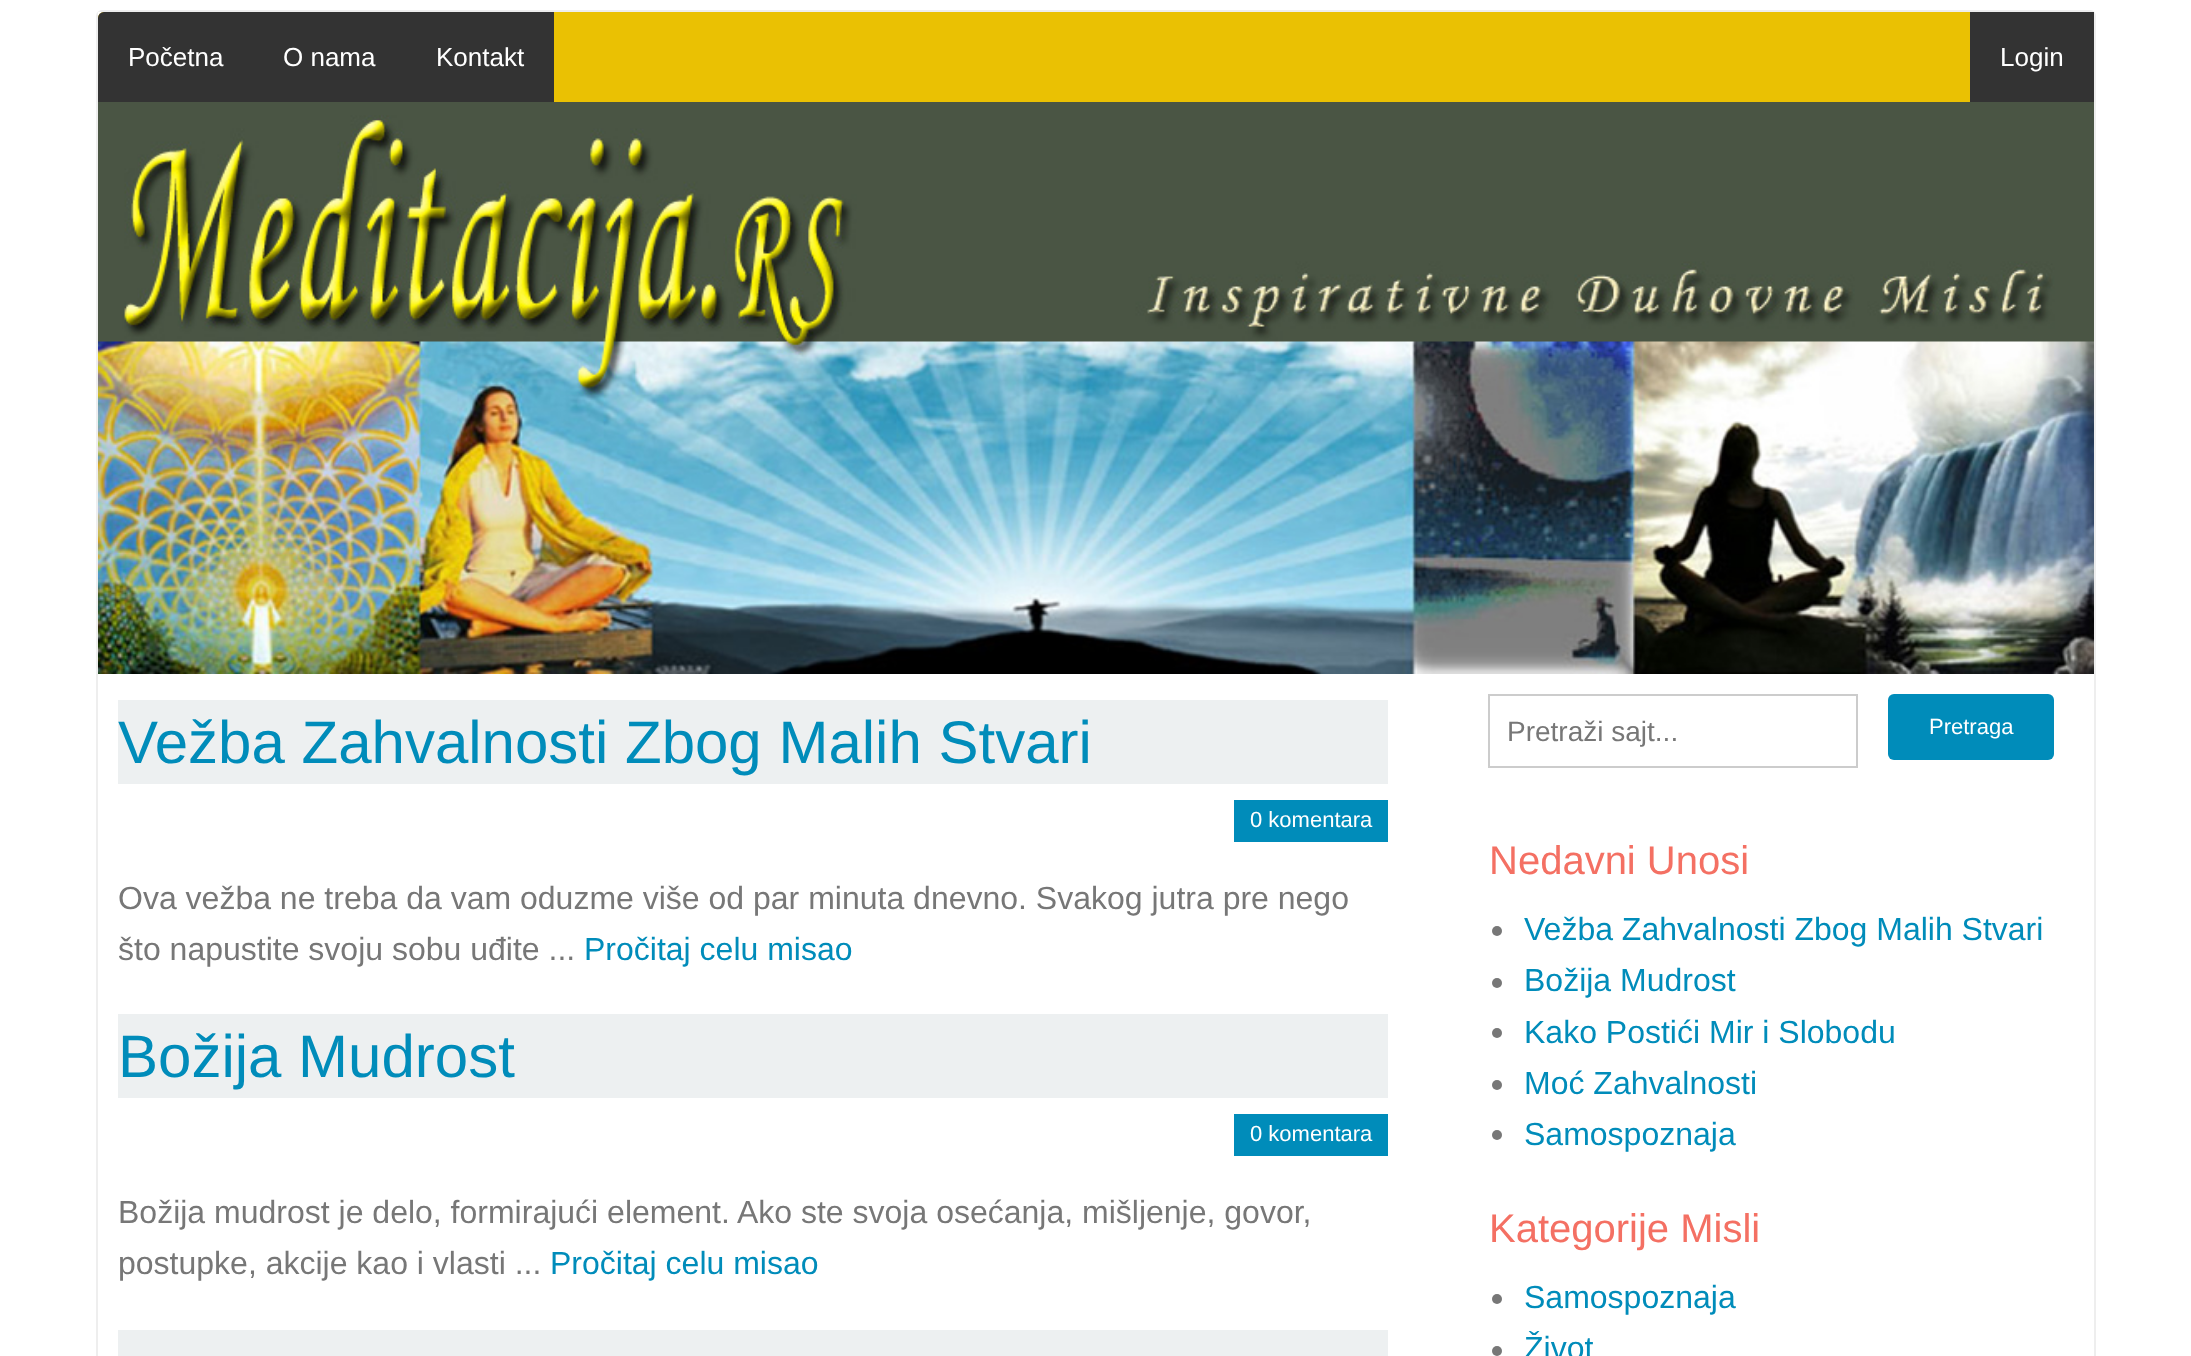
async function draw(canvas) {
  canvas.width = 2191
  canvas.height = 1356
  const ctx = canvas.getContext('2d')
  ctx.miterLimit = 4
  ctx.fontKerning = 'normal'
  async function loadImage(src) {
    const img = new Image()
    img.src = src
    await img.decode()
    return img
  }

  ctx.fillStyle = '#fff'
  ctx.fillRect(0, 0, 2191, 1356)
  ctx.beginPath()
  ctx.roundRect(97, 11, 1998, 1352, 5)
  ctx.strokeStyle = '#eee'
  ctx.lineWidth = 2
  ctx.stroke()
  ctx.fillRect(98, 12, 6, 3)
  ctx.fillStyle = '#eac103'
  ctx.beginPath()
  ctx.roundRect(98, 12, 1996, 90, [6, 0, 0, 0])
  ctx.fill()
  ctx.fillStyle = '#333'
  ctx.beginPath()
  ctx.roundRect(98, 12, 156, 90, [6, 0, 0, 0])
  ctx.fill()
  ctx.font = '26px Liberation Sans'
  ctx.fillStyle = '#fff'
  ctx.fillText('Početna', 128, 66)
  ctx.fillStyle = '#333'
  ctx.fillRect(254, 12, 300, 90)
  ctx.fillStyle = '#fff'
  ctx.fillText('O nama', 283, 66)
  ctx.fillText('Kontakt', 436, 66)
  ctx.fillStyle = '#333'
  ctx.fillRect(1970, 12, 124, 90)
  ctx.fillStyle = '#fff'
  ctx.fillText('Login', 2000, 66)
  ctx.drawImage(await loadImage('image0.png'), 98, 102, 1996, 572)
  ctx.fillStyle = '#edf0f1'
  ctx.fillRect(118, 700, 1270, 84)
  ctx.font = '60px Liberation Sans'
  ctx.fillStyle = '#008cba'
  ctx.fillText('Vežba Zahvalnosti Zbog Malih Stvari', 118, 763)
  ctx.fillRect(1234, 800, 154, 42)
  ctx.font = '22px Liberation Sans'
  ctx.fillStyle = '#fff'
  ctx.fillText('0 komentara', 1250, 827)
  ctx.font = '32px Liberation Sans'
  ctx.fillStyle = '#777'
  ctx.fillText('Ova vežba ne treba da vam oduzme više od par minuta dnevno. Svakog jutra pre nego', 118, 909)
  ctx.fillText('što napustite svoju sobu uđite ...', 118, 960)
  ctx.fillStyle = '#008cba'
  ctx.fillText('Pročitaj celu misao', 584, 960)
  ctx.fillStyle = '#edf0f1'
  ctx.fillRect(118, 1014, 1270, 84)
  ctx.font = '60px Liberation Sans'
  ctx.fillStyle = '#008cba'
  ctx.fillText('Božija Mudrost', 118, 1077)
  ctx.fillRect(1234, 1114, 154, 42)
  ctx.font = '22px Liberation Sans'
  ctx.fillStyle = '#fff'
  ctx.fillText('0 komentara', 1250, 1141)
  ctx.font = '32px Liberation Sans'
  ctx.fillStyle = '#777'
  ctx.fillText('Božija mudrost je delo, formirajući element. Ako ste svoja osećanja, mišljenje, govor,', 118, 1223)
  ctx.fillText('postupke, akcije kao i vlasti ...', 118, 1274)
  ctx.fillStyle = '#008cba'
  ctx.fillText('Pročitaj celu misao', 550, 1274)
  ctx.fillStyle = '#edf0f1'
  ctx.fillRect(118, 1330, 1270, 26)
  ctx.strokeStyle = '#ccc'
  ctx.strokeRect(1489, 695, 368, 72)
  ctx.font = '28px Liberation Sans'
  ctx.fillStyle = '#777'
  ctx.fillText('Pretraži sajt...', 1507, 741)
  ctx.fillStyle = '#008cba'
  ctx.beginPath()
  ctx.roundRect(1888, 694, 166, 66, 6)
  ctx.fill()
  ctx.font = '22px Liberation Sans'
  ctx.fillStyle = '#fff'
  ctx.fillText('Pretraga', 1929, 734)
  ctx.font = '40px Liberation Sans'
  ctx.fillStyle = '#f47063'
  ctx.fillText('Nedavni Unosi', 1489, 874)
  ctx.fillStyle = '#777'
  ctx.beginPath()
  ctx.arc(1497, 931, 5, 0, 2 * Math.PI)
  ctx.fill()
  ctx.font = '32px Liberation Sans'
  ctx.fillStyle = '#008cba'
  ctx.fillText('Vežba Zahvalnosti Zbog Malih Stvari', 1524, 940)
  ctx.fillStyle = '#777'
  ctx.beginPath()
  ctx.arc(1497, 983, 5, 0, 2 * Math.PI)
  ctx.fill()
  ctx.fillStyle = '#008cba'
  ctx.fillText('Božija Mudrost', 1524, 991)
  ctx.fillStyle = '#777'
  ctx.beginPath()
  ctx.arc(1497, 1033, 5, 0, 2 * Math.PI)
  ctx.fill()
  ctx.fillStyle = '#008cba'
  ctx.fillText('Kako Postići Mir i Slobodu', 1524, 1043)
  ctx.fillStyle = '#777'
  ctx.beginPath()
  ctx.arc(1497, 1085, 5, 0, 2 * Math.PI)
  ctx.fill()
  ctx.fillStyle = '#008cba'
  ctx.fillText('Moć Zahvalnosti', 1524, 1094)
  ctx.fillStyle = '#777'
  ctx.beginPath()
  ctx.arc(1497, 1135, 5, 0, 2 * Math.PI)
  ctx.fill()
  ctx.fillStyle = '#008cba'
  ctx.fillText('Samospoznaja', 1524, 1145)
  ctx.font = '40px Liberation Sans'
  ctx.fillStyle = '#f47063'
  ctx.fillText('Kategorije Misli', 1489, 1242)
  ctx.fillStyle = '#777'
  ctx.beginPath()
  ctx.arc(1497, 1299, 5, 0, 2 * Math.PI)
  ctx.fill()
  ctx.font = '32px Liberation Sans'
  ctx.fillStyle = '#008cba'
  ctx.fillText('Samospoznaja', 1524, 1308)
  ctx.fillStyle = '#777'
  ctx.beginPath()
  ctx.arc(1497, 1351, 5, 0, 2 * Math.PI)
  ctx.fill()
  ctx.fillStyle = '#008cba'
  ctx.fillText('Život', 1524, 1359)
}

draw(document.querySelector('canvas'))
